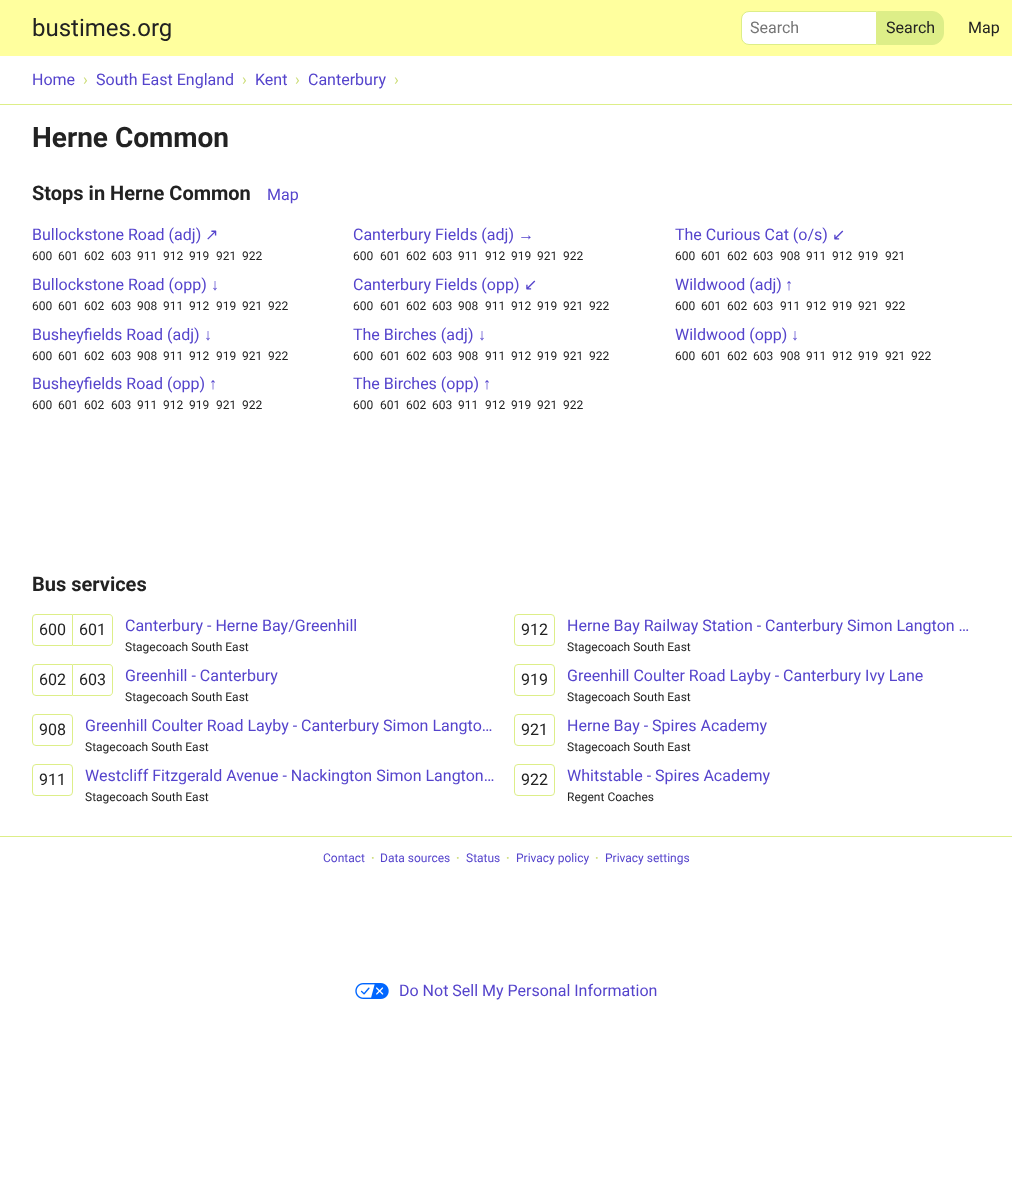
async function draw(canvas) {
  canvas.width = 1012
  canvas.height = 1181
  const ctx = canvas.getContext('2d')
  ctx.miterLimit = 4
  ctx.fontKerning = 'normal'
  async function loadImage(src) {
    const img = new Image()
    img.src = src
    await img.decode()
    return img
  }

  ctx.fillStyle = '#fff'
  ctx.fillRect(0, 0, 1012, 1181)
  ctx.fillStyle = '#ffff9e'
  ctx.fillRect(0, 0, 1012, 56)
  ctx.font = '24px Roboto'
  ctx.fillStyle = '#222'
  ctx.fillText('bustimes.org', 32, 36)
  ctx.fillStyle = '#fff'
  ctx.beginPath()
  ctx.roundRect(741.5, 11.5, 135, 33, [7.5, 0, 0, 7.5])
  ctx.fill()
  ctx.strokeStyle = '#de8'
  ctx.stroke()
  ctx.font = '16px Roboto'
  ctx.fillStyle = '#757575'
  ctx.fillText('Search', 750, 33)
  ctx.fillStyle = '#de8'
  ctx.beginPath()
  ctx.roundRect(877.5, 11.5, 66, 33, [0, 11.5, 11.5, 0])
  ctx.fill()
  ctx.stroke()
  ctx.fillStyle = '#222'
  ctx.fillText('Search', 886, 33)
  ctx.fillText('Map', 968, 33)
  ctx.fillStyle = '#de8'
  ctx.fillRect(0, 104, 1012, 1)
  ctx.fillStyle = '#54c'
  ctx.fillText('Home', 32, 85)
  ctx.fillStyle = '#cd7'
  ctx.fillText('›', 83, 85)
  ctx.fillStyle = '#54c'
  ctx.fillText('South East England', 96, 85)
  ctx.fillStyle = '#cd7'
  ctx.fillText('›', 242, 85)
  ctx.fillStyle = '#54c'
  ctx.fillText('Kent', 255, 85)
  ctx.fillStyle = '#cd7'
  ctx.fillText('›', 295, 85)
  ctx.fillStyle = '#54c'
  ctx.fillText('Canterbury', 308, 85)
  ctx.fillStyle = '#cd7'
  ctx.fillText('›', 394, 85)
  ctx.font = 'bold 28px Roboto'
  ctx.fillStyle = '#222'
  ctx.fillText('Herne Common', 32, 147)
  ctx.font = 'bold 20px Roboto'
  ctx.fillText('Stops in Herne Common', 32, 200)
  ctx.font = '16px Roboto'
  ctx.fillStyle = '#54c'
  ctx.fillText('Map', 267, 200)
  ctx.fillText('Bullockstone Road (adj)', 32, 240)
  ctx.font = '16px DejaVu Sans'
  ctx.fillText('↗', 205, 240)
  ctx.font = '12px Roboto'
  ctx.fillStyle = '#222'
  ctx.fillText('600', 32, 260)
  ctx.fillText('601', 58, 260)
  ctx.fillText('602', 84, 260)
  ctx.fillText('603', 111, 260)
  ctx.fillText('911', 137, 260)
  ctx.fillText('912', 163, 260)
  ctx.fillText('919', 189, 260)
  ctx.fillText('921', 216, 260)
  ctx.fillText('922', 242, 260)
  ctx.font = '16px Roboto'
  ctx.fillStyle = '#54c'
  ctx.fillText('Canterbury Fields (adj)', 353, 240)
  ctx.font = '16px Liberation Sans'
  ctx.fillText('→', 518, 240)
  ctx.font = '12px Roboto'
  ctx.fillStyle = '#222'
  ctx.fillText('600', 353, 260)
  ctx.fillText('601', 380, 260)
  ctx.fillText('602', 406, 260)
  ctx.fillText('603', 432, 260)
  ctx.fillText('911', 458, 260)
  ctx.fillText('912', 485, 260)
  ctx.fillText('919', 511, 260)
  ctx.fillText('921', 537, 260)
  ctx.fillText('922', 563, 260)
  ctx.font = '16px Roboto'
  ctx.fillStyle = '#54c'
  ctx.fillText('The Curious Cat (o/s)', 675, 240)
  ctx.font = '16px DejaVu Sans'
  ctx.fillText('↙', 832, 240)
  ctx.font = '12px Roboto'
  ctx.fillStyle = '#222'
  ctx.fillText('600', 675, 260)
  ctx.fillText('601', 701, 260)
  ctx.fillText('602', 727, 260)
  ctx.fillText('603', 753, 260)
  ctx.fillText('908', 780, 260)
  ctx.fillText('911', 806, 260)
  ctx.fillText('912', 832, 260)
  ctx.fillText('919', 858, 260)
  ctx.fillText('921', 885, 260)
  ctx.font = '16px Roboto'
  ctx.fillStyle = '#54c'
  ctx.fillText('Bullockstone Road (opp)', 32, 290)
  ctx.font = '16px Liberation Sans'
  ctx.fillText('↓', 211, 290)
  ctx.font = '12px Roboto'
  ctx.fillStyle = '#222'
  ctx.fillText('600', 32, 310)
  ctx.fillText('601', 58, 310)
  ctx.fillText('602', 84, 310)
  ctx.fillText('603', 111, 310)
  ctx.fillText('908', 137, 310)
  ctx.fillText('911', 163, 310)
  ctx.fillText('912', 189, 310)
  ctx.fillText('919', 216, 310)
  ctx.fillText('921', 242, 310)
  ctx.fillText('922', 268, 310)
  ctx.font = '16px Roboto'
  ctx.fillStyle = '#54c'
  ctx.fillText('Canterbury Fields (opp)', 353, 290)
  ctx.font = '16px DejaVu Sans'
  ctx.fillText('↙', 524, 290)
  ctx.font = '12px Roboto'
  ctx.fillStyle = '#222'
  ctx.fillText('600', 353, 310)
  ctx.fillText('601', 380, 310)
  ctx.fillText('602', 406, 310)
  ctx.fillText('603', 432, 310)
  ctx.fillText('908', 458, 310)
  ctx.fillText('911', 485, 310)
  ctx.fillText('912', 511, 310)
  ctx.fillText('919', 537, 310)
  ctx.fillText('921', 563, 310)
  ctx.fillText('922', 589, 310)
  ctx.font = '16px Roboto'
  ctx.fillStyle = '#54c'
  ctx.fillText('Wildwood (adj)', 675, 290)
  ctx.font = '16px Liberation Sans'
  ctx.fillText('↑', 785, 290)
  ctx.font = '12px Roboto'
  ctx.fillStyle = '#222'
  ctx.fillText('600', 675, 310)
  ctx.fillText('601', 701, 310)
  ctx.fillText('602', 727, 310)
  ctx.fillText('603', 753, 310)
  ctx.fillText('911', 780, 310)
  ctx.fillText('912', 806, 310)
  ctx.fillText('919', 832, 310)
  ctx.fillText('921', 858, 310)
  ctx.fillText('922', 885, 310)
  ctx.font = '16px Roboto'
  ctx.fillStyle = '#54c'
  ctx.fillText('Busheyfields Road (adj)', 32, 340)
  ctx.font = '16px Liberation Sans'
  ctx.fillText('↓', 204, 340)
  ctx.font = '12px Roboto'
  ctx.fillStyle = '#222'
  ctx.fillText('600', 32, 360)
  ctx.fillText('601', 58, 360)
  ctx.fillText('602', 84, 360)
  ctx.fillText('603', 111, 360)
  ctx.fillText('908', 137, 360)
  ctx.fillText('911', 163, 360)
  ctx.fillText('912', 189, 360)
  ctx.fillText('919', 216, 360)
  ctx.fillText('921', 242, 360)
  ctx.fillText('922', 268, 360)
  ctx.font = '16px Roboto'
  ctx.fillStyle = '#54c'
  ctx.fillText('The Birches (adj)', 353, 340)
  ctx.font = '16px Liberation Sans'
  ctx.fillText('↓', 478, 340)
  ctx.font = '12px Roboto'
  ctx.fillStyle = '#222'
  ctx.fillText('600', 353, 360)
  ctx.fillText('601', 380, 360)
  ctx.fillText('602', 406, 360)
  ctx.fillText('603', 432, 360)
  ctx.fillText('908', 458, 360)
  ctx.fillText('911', 485, 360)
  ctx.fillText('912', 511, 360)
  ctx.fillText('919', 537, 360)
  ctx.fillText('921', 563, 360)
  ctx.fillText('922', 589, 360)
  ctx.font = '16px Roboto'
  ctx.fillStyle = '#54c'
  ctx.fillText('Wildwood (opp)', 675, 340)
  ctx.font = '16px Liberation Sans'
  ctx.fillText('↓', 791, 340)
  ctx.font = '12px Roboto'
  ctx.fillStyle = '#222'
  ctx.fillText('600', 675, 360)
  ctx.fillText('601', 701, 360)
  ctx.fillText('602', 727, 360)
  ctx.fillText('603', 753, 360)
  ctx.fillText('908', 780, 360)
  ctx.fillText('911', 806, 360)
  ctx.fillText('912', 832, 360)
  ctx.fillText('919', 858, 360)
  ctx.fillText('921', 885, 360)
  ctx.fillText('922', 911, 360)
  ctx.font = '16px Roboto'
  ctx.fillStyle = '#54c'
  ctx.fillText('Busheyfields Road (opp)', 32, 389)
  ctx.font = '16px Liberation Sans'
  ctx.fillText('↑', 209, 389)
  ctx.font = '12px Roboto'
  ctx.fillStyle = '#222'
  ctx.fillText('600', 32, 409)
  ctx.fillText('601', 58, 409)
  ctx.fillText('602', 84, 409)
  ctx.fillText('603', 111, 409)
  ctx.fillText('911', 137, 409)
  ctx.fillText('912', 163, 409)
  ctx.fillText('919', 189, 409)
  ctx.fillText('921', 216, 409)
  ctx.fillText('922', 242, 409)
  ctx.font = '16px Roboto'
  ctx.fillStyle = '#54c'
  ctx.fillText('The Birches (opp)', 353, 389)
  ctx.font = '16px Liberation Sans'
  ctx.fillText('↑', 483, 389)
  ctx.font = '12px Roboto'
  ctx.fillStyle = '#222'
  ctx.fillText('600', 353, 409)
  ctx.fillText('601', 380, 409)
  ctx.fillText('602', 406, 409)
  ctx.fillText('603', 432, 409)
  ctx.fillText('911', 458, 409)
  ctx.fillText('912', 485, 409)
  ctx.fillText('919', 511, 409)
  ctx.fillText('921', 537, 409)
  ctx.fillText('922', 563, 409)
  ctx.font = 'bold 20px Roboto'
  ctx.fillText('Bus services', 32, 591)
  ctx.beginPath()
  ctx.roundRect(32.5, 614.5, 40, 31, [3.5, 0, 0, 3.5])
  ctx.stroke()
  ctx.font = '16px Roboto'
  ctx.fillText('600', 39, 635)
  ctx.fillStyle = '#de8'
  ctx.beginPath()
  ctx.moveTo(73, 614)
  ctx.lineTo(109, 614)
  ctx.bezierCurveTo(111, 614, 113, 616, 113, 618)
  ctx.lineTo(113, 642)
  ctx.bezierCurveTo(113, 644, 111, 646, 109, 646)
  ctx.lineTo(73, 646)
  ctx.closePath()
  ctx.moveTo(73, 615)
  ctx.lineTo(109, 615)
  ctx.bezierCurveTo(111, 615, 112, 616, 112, 618)
  ctx.lineTo(112, 642)
  ctx.bezierCurveTo(112, 644, 111, 645, 109, 645)
  ctx.lineTo(73, 645)
  ctx.closePath()
  ctx.fill('evenodd')
  ctx.fillStyle = '#222'
  ctx.fillText('601', 79, 635)
  ctx.fillStyle = '#54c'
  ctx.fillText('Canterbury - Herne Bay/Greenhill', 125, 631)
  ctx.font = '12px Roboto'
  ctx.fillStyle = '#222'
  ctx.fillText('Stagecoach South East', 125, 651)
  ctx.beginPath()
  ctx.roundRect(514.5, 614.5, 40, 31, 3.5)
  ctx.stroke()
  ctx.font = '16px Roboto'
  ctx.fillText('912', 521, 635)
  ctx.fillStyle = '#54c'
  ctx.fillText('Herne Bay Railway Station - Canterbury Simon Langton …', 567, 631)
  ctx.font = '12px Roboto'
  ctx.fillStyle = '#222'
  ctx.fillText('Stagecoach South East', 567, 651)
  ctx.beginPath()
  ctx.roundRect(32.5, 664.5, 40, 31, [3.5, 0, 0, 3.5])
  ctx.stroke()
  ctx.font = '16px Roboto'
  ctx.fillText('602', 39, 685)
  ctx.fillStyle = '#de8'
  ctx.beginPath()
  ctx.moveTo(73, 664)
  ctx.lineTo(109, 664)
  ctx.bezierCurveTo(111, 664, 113, 666, 113, 668)
  ctx.lineTo(113, 692)
  ctx.bezierCurveTo(113, 694, 111, 696, 109, 696)
  ctx.lineTo(73, 696)
  ctx.closePath()
  ctx.moveTo(73, 665)
  ctx.lineTo(109, 665)
  ctx.bezierCurveTo(111, 665, 112, 666, 112, 668)
  ctx.lineTo(112, 692)
  ctx.bezierCurveTo(112, 694, 111, 695, 109, 695)
  ctx.lineTo(73, 695)
  ctx.closePath()
  ctx.fill('evenodd')
  ctx.fillStyle = '#222'
  ctx.fillText('603', 79, 685)
  ctx.fillStyle = '#54c'
  ctx.fillText('Greenhill - Canterbury', 125, 681)
  ctx.font = '12px Roboto'
  ctx.fillStyle = '#222'
  ctx.fillText('Stagecoach South East', 125, 701)
  ctx.beginPath()
  ctx.roundRect(514.5, 664.5, 40, 31, 3.5)
  ctx.stroke()
  ctx.font = '16px Roboto'
  ctx.fillText('919', 521, 685)
  ctx.fillStyle = '#54c'
  ctx.fillText('Greenhill Coulter Road Layby - Canterbury Ivy Lane', 567, 681)
  ctx.font = '12px Roboto'
  ctx.fillStyle = '#222'
  ctx.fillText('Stagecoach South East', 567, 701)
  ctx.beginPath()
  ctx.roundRect(32.5, 714.5, 40, 31, 3.5)
  ctx.stroke()
  ctx.font = '16px Roboto'
  ctx.fillText('908', 39, 735)
  ctx.fillStyle = '#54c'
  ctx.fillText('Greenhill Coulter Road Layby - Canterbury Simon Langto…', 85, 731)
  ctx.font = '12px Roboto'
  ctx.fillStyle = '#222'
  ctx.fillText('Stagecoach South East', 85, 751)
  ctx.beginPath()
  ctx.roundRect(514.5, 714.5, 40, 31, 3.5)
  ctx.stroke()
  ctx.font = '16px Roboto'
  ctx.fillText('921', 521, 735)
  ctx.fillStyle = '#54c'
  ctx.fillText('Herne Bay - Spires Academy', 567, 731)
  ctx.font = '12px Roboto'
  ctx.fillStyle = '#222'
  ctx.fillText('Stagecoach South East', 567, 751)
  ctx.beginPath()
  ctx.roundRect(32.5, 764.5, 40, 31, 3.5)
  ctx.stroke()
  ctx.font = '16px Roboto'
  ctx.fillText('911', 39, 785)
  ctx.fillStyle = '#54c'
  ctx.fillText('Westcliff Fitzgerald Avenue - Nackington Simon Langton…', 85, 781)
  ctx.font = '12px Roboto'
  ctx.fillStyle = '#222'
  ctx.fillText('Stagecoach South East', 85, 801)
  ctx.beginPath()
  ctx.roundRect(514.5, 764.5, 40, 31, 3.5)
  ctx.stroke()
  ctx.font = '16px Roboto'
  ctx.fillText('922', 521, 785)
  ctx.fillStyle = '#54c'
  ctx.fillText('Whitstable - Spires Academy', 567, 781)
  ctx.font = '12px Roboto'
  ctx.fillStyle = '#222'
  ctx.fillText('Regent Coaches', 567, 801)
  ctx.fillStyle = '#de8'
  ctx.fillRect(0, 836, 1012, 1)
  ctx.fillStyle = '#54c'
  ctx.fillText('Contact', 323, 862)
  ctx.font = 'bold 12px Roboto'
  ctx.fillStyle = '#cd7'
  ctx.fillText('·', 371, 862)
  ctx.font = '12px Roboto'
  ctx.fillStyle = '#54c'
  ctx.fillText('Data sources', 380, 862)
  ctx.font = 'bold 12px Roboto'
  ctx.fillStyle = '#cd7'
  ctx.fillText('·', 456, 862)
  ctx.font = '12px Roboto'
  ctx.fillStyle = '#54c'
  ctx.fillText('Status', 466, 862)
  ctx.font = 'bold 12px Roboto'
  ctx.fillStyle = '#cd7'
  ctx.fillText('·', 506, 862)
  ctx.font = '12px Roboto'
  ctx.fillStyle = '#54c'
  ctx.fillText('Privacy policy', 516, 862)
  ctx.font = 'bold 12px Roboto'
  ctx.fillStyle = '#cd7'
  ctx.fillText('·', 595, 862)
  ctx.font = '12px Roboto'
  ctx.fillStyle = '#54c'
  ctx.fillText('Privacy settings', 605, 862)
  ctx.drawImage(await loadImage('image0.png'), 355, 983, 34, 16)
  ctx.font = '16px Roboto'
  ctx.fillText('Do Not Sell My Personal Information', 399, 996)
}

draw(document.querySelector('canvas'))
